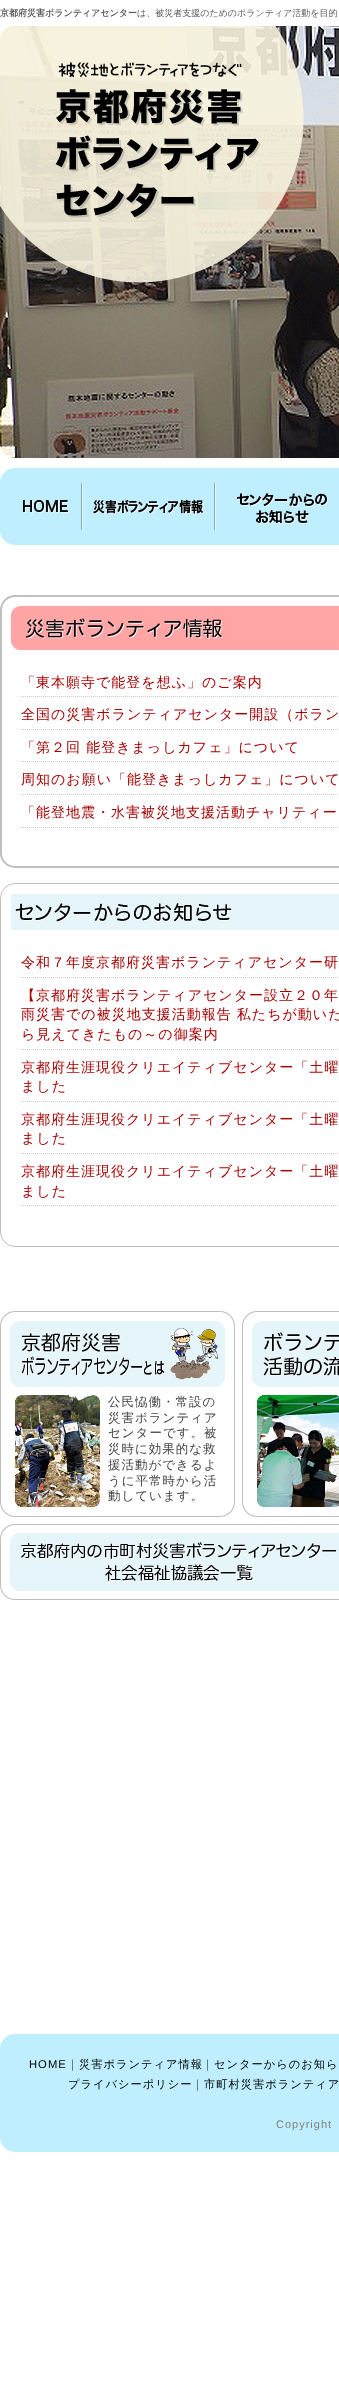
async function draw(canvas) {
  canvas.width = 339
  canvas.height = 2392
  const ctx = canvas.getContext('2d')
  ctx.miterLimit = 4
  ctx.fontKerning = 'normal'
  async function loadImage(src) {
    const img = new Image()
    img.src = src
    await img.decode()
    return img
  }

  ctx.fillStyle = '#fff'
  ctx.fillRect(0, 0, 339, 2392)
  ctx.font = 'bold 9px WenQuanYi Zen Hei'
  ctx.fillStyle = '#595959'
  ctx.fillText('京都府災害ボランティアセンター', 0, 16)
  ctx.font = '500 9px WenQuanYi Zen Hei'
  ctx.fillText('は、被災者支援のためのボランティア活動を目的', 137, 16)
  ctx.drawImage(await loadImage('image0.png'), 0, 26, 339, 432)
  ctx.drawImage(await loadImage('image1.png'), 0, 26, 304, 257)
  ctx.fillStyle = '#bfeeff'
  ctx.beginPath()
  ctx.roundRect(0, 468, 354, 77, 15)
  ctx.fill()
  ctx.fillStyle = '#84a8b7'
  ctx.fillRect(81, 483, 1, 47)
  ctx.drawImage(await loadImage('image2.png'), 23, 500, 46, 13)
  ctx.fillRect(214, 483, 1, 47)
  ctx.fillStyle = '#ecfaff'
  ctx.fillRect(82, 483, 1, 47)
  ctx.drawImage(await loadImage('image3.png'), 93, 499, 111, 16)
  ctx.fillRect(215, 483, 1, 47)
  ctx.drawImage(await loadImage('image4.png'), 237, 493, 91, 31)
  ctx.beginPath()
  ctx.roundRect(1, 596, 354, 271, 14)
  ctx.strokeStyle = '#bfbfbf'
  ctx.lineWidth = 2
  ctx.stroke()
  ctx.drawImage(await loadImage('image5.png'), 11, 606, 328, 44)
  ctx.beginPath()
  ctx.moveTo(21, 696.5)
  ctx.lineTo(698, 696.5)
  ctx.strokeStyle = '#ccc'
  ctx.lineWidth = 1
  ctx.setLineDash([1, 1])
  ctx.stroke()
  ctx.letterSpacing = '1px'
  ctx.font = '500 14px WenQuanYi Zen Hei'
  ctx.fillStyle = '#a60000'
  ctx.fillText('「東本願寺で能登を想ふ」のご案内', 21, 687)
  ctx.beginPath()
  ctx.moveTo(21, 729.5)
  ctx.lineTo(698, 729.5)
  ctx.stroke()
  ctx.fillText('全国の災害ボランティアセンター開設（ボラン', 21, 719)
  ctx.beginPath()
  ctx.moveTo(21, 761.5)
  ctx.lineTo(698, 761.5)
  ctx.stroke()
  ctx.fillText('「第２回 能登きまっしカフェ」について', 21, 752)
  ctx.beginPath()
  ctx.moveTo(21, 794.5)
  ctx.lineTo(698, 794.5)
  ctx.stroke()
  ctx.fillText('周知のお願い「能登きまっしカフェ」について', 21, 784)
  ctx.beginPath()
  ctx.moveTo(21, 827.5)
  ctx.lineTo(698, 827.5)
  ctx.stroke()
  ctx.fillText('「能登地震・水害被災地支援活動チャリティー', 21, 817)
  ctx.beginPath()
  ctx.roundRect(0.5, 883.5, 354, 363, 14.5)
  ctx.strokeStyle = '#bfbfbf'
  ctx.setLineDash([])
  ctx.stroke()
  ctx.drawImage(await loadImage('image6.png'), 11, 894, 328, 36)
  ctx.beginPath()
  ctx.moveTo(21, 977.5)
  ctx.lineTo(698, 977.5)
  ctx.strokeStyle = '#ccc'
  ctx.setLineDash([1, 1])
  ctx.stroke()
  ctx.fillText('令和７年度京都府災害ボランティアセンター研', 21, 967)
  ctx.beginPath()
  ctx.moveTo(21, 1049.5)
  ctx.lineTo(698, 1049.5)
  ctx.stroke()
  ctx.fillText('【京都府災害ボランティアセンター設立２０年', 21, 1000)
  ctx.fillText('雨災害での被災地支援活動報告 私たちが動いた', 21, 1019)
  ctx.fillText('ら見えてきたもの～の御案内', 21, 1039)
  ctx.beginPath()
  ctx.moveTo(21, 1101.5)
  ctx.lineTo(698, 1101.5)
  ctx.stroke()
  ctx.fillText('京都府生涯現役クリエイティブセンター「土曜', 21, 1072)
  ctx.fillText('ました', 21, 1091)
  ctx.beginPath()
  ctx.moveTo(21, 1153.5)
  ctx.lineTo(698, 1153.5)
  ctx.stroke()
  ctx.fillText('京都府生涯現役クリエイティブセンター「土曜', 21, 1124)
  ctx.fillText('ました', 21, 1143)
  ctx.beginPath()
  ctx.moveTo(21, 1205.5)
  ctx.lineTo(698, 1205.5)
  ctx.stroke()
  ctx.fillText('京都府生涯現役クリエイティブセンター「土曜', 21, 1176)
  ctx.fillText('ました', 21, 1196)
  ctx.drawImage(await loadImage('image7.png'), 0, 1311, 235, 192)
  ctx.drawImage(await loadImage('image8.png'), 0, 1503, 235, 14)
  ctx.drawImage(await loadImage('image9.png'), 10, 1321, 215, 66)
  ctx.drawImage(await loadImage('image10.png'), 15, 1395, 85, 112)
  ctx.font = '500 12.5px WenQuanYi Zen Hei'
  ctx.fillStyle = '#444'
  ctx.fillText('公民恊働・常設の', 108, 1406)
  ctx.fillText('災害ボランティア', 108, 1422)
  ctx.fillText('センターです。被', 108, 1437)
  ctx.fillText('災時に効果的な救', 108, 1453)
  ctx.fillText('援活動ができるよ', 108, 1469)
  ctx.fillText('うに平常時から活', 108, 1485)
  ctx.fillText('動しています。', 108, 1500)
  ctx.drawImage(await loadImage('image11.png'), 242, 1311, 97, 192)
  ctx.drawImage(await loadImage('image12.png'), 242, 1503, 97, 14)
  ctx.drawImage(await loadImage('image13.png'), 252, 1321, 87, 66)
  ctx.drawImage(await loadImage('image14.png'), 257, 1395, 82, 112)
  ctx.drawImage(await loadImage('image15.png'), 0, 1524, 339, 76)
  ctx.fillStyle = '#bfeeff'
  ctx.beginPath()
  ctx.roundRect(0, 2034, 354, 118, 15)
  ctx.fill()
  ctx.font = '11.25px Liberation Sans'
  ctx.fillStyle = '#000'
  ctx.fillText('HOME', 29, 2068)
  ctx.font = '500 11.25px WenQuanYi Zen Hei'
  ctx.fillStyle = '#444'
  ctx.fillText('｜', 67, 2068)
  ctx.fillStyle = '#000'
  ctx.fillText('災害ボランティア情報', 79, 2068)
  ctx.fillStyle = '#444'
  ctx.fillText('｜', 202, 2068)
  ctx.fillStyle = '#000'
  ctx.fillText('センターからのお知ら', 214, 2068)
  ctx.fillText('プライバシーポリシー', 68, 2088)
  ctx.fillStyle = '#444'
  ctx.fillText('｜', 192, 2088)
  ctx.fillStyle = '#000'
  ctx.fillText('市町村災害ボランティア', 204, 2088)
  ctx.font = '11px Liberation Sans'
  ctx.fillStyle = '#808080'
  ctx.fillText('Copyright', 276, 2128)
}

draw(document.querySelector('canvas'))
